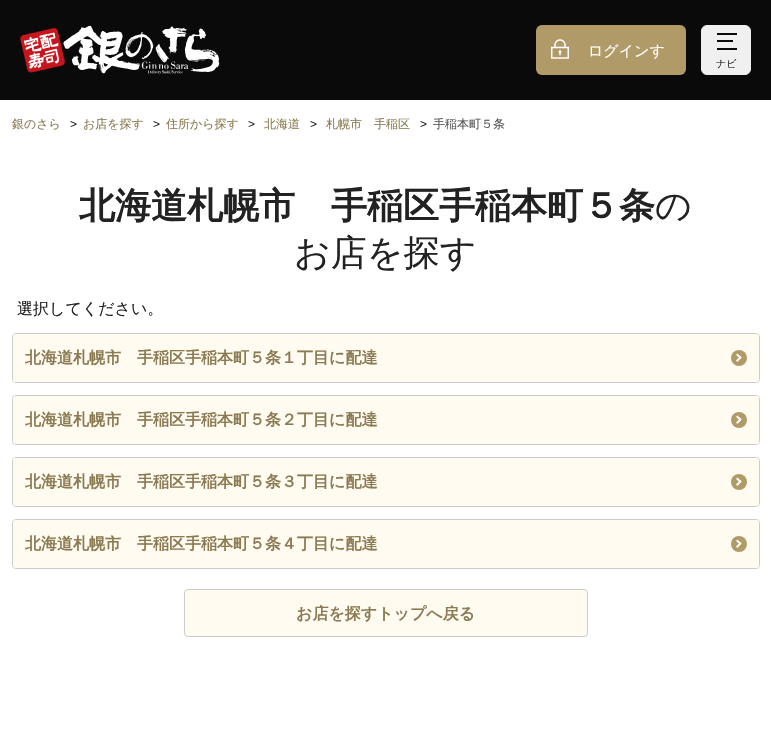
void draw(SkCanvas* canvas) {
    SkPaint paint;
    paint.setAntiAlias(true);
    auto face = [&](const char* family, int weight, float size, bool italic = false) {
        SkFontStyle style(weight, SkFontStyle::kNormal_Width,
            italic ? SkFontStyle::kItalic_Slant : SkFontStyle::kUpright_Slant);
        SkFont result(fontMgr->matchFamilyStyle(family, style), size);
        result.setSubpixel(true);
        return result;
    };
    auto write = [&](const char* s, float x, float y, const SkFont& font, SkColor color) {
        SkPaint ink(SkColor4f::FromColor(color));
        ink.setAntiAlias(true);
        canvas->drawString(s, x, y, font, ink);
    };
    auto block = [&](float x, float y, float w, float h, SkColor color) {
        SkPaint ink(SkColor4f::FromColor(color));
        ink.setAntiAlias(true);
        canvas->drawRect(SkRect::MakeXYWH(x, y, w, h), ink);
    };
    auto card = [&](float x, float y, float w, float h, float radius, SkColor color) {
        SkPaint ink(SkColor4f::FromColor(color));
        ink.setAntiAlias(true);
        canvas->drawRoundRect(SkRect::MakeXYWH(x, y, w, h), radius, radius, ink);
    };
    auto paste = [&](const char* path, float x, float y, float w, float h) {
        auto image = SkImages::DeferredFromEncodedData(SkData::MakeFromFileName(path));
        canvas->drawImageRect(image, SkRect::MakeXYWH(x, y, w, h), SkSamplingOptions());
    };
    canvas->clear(SK_ColorWHITE);
    block(0, 0, 771, 100, SkColorSetRGB(10, 10, 10));
    paste("pic1.png", 20, 25, 200, 50);
    card(536, 25, 150, 50, 6, SkColorSetRGB(176, 154, 104));
    paste("pic2.png", 551, 39, 18, 20);
    auto kFont1 = face("WenQuanYi Zen Hei", 500, 15);
    write("ログインす", 588, 56, kFont1, SK_ColorWHITE);
    paint.setColor(SkColorSetRGB(240, 240, 240));
    canvas->drawRoundRect(SkRect::MakeXYWH(701.5f, 25.5f, 49, 49), 5.5f, 5.5f, paint);
    paint.setStyle(SkPaint::kStroke_Style);
    paint.setStrokeWidth(1);
    canvas->drawRoundRect(SkRect::MakeXYWH(701.5f, 25.5f, 49, 49), 5.5f, 5.5f, paint);
    block(717, 33, 20, 2, SkColorSetRGB(10, 10, 10));
    block(717, 40, 16, 2, SkColorSetRGB(10, 10, 10));
    block(717, 48, 20, 2, SkColorSetRGB(10, 10, 10));
    auto kFont2 = face("WenQuanYi Zen Hei", 500, 10);
    write("ナビ", 716, 67, kFont2, SkColorSetRGB(34, 34, 34));
    auto kFont3 = face("WenQuanYi Zen Hei", 500, 12);
    write("銀のさら", 12, 128, kFont3, SkColorSetRGB(139, 122, 82));
    auto kFont4 = face("Liberation Sans", 400, 12);
    write(">", 70, 128, kFont4, SkColorSetRGB(34, 34, 34));
    write("お店を探す", 83, 128, kFont3, SkColorSetRGB(139, 122, 82));
    write(">", 153, 128, kFont4, SkColorSetRGB(34, 34, 34));
    write("住所から探す", 166, 128, kFont3, SkColorSetRGB(139, 122, 82));
    write(">", 248, 128, kFont4, SkColorSetRGB(34, 34, 34));
    write("北海道", 264, 128, kFont3, SkColorSetRGB(139, 122, 82));
    write(">", 310, 128, kFont4, SkColorSetRGB(34, 34, 34));
    write("札幌市　手稲区", 326, 128, kFont3, SkColorSetRGB(139, 122, 82));
    write(">", 420, 128, kFont4, SkColorSetRGB(34, 34, 34));
    write("手稲本町５条", 433, 128, kFont3, SkColorSetRGB(85, 85, 85));
    auto kFont5 = face("WenQuanYi Zen Hei", 700, 36);
    write("北海道札幌市　手稲区手稲本町５条", 79, 218, kFont5, SkColorSetRGB(34, 34, 34));
    auto kFont6 = face("WenQuanYi Zen Hei", 500, 36);
    write("の", 655, 218, kFont6, SkColorSetRGB(34, 34, 34));
    write("お店を探す", 294, 265, kFont6, SkColorSetRGB(34, 34, 34));
    auto kFont7 = face("WenQuanYi Zen Hei", 500, 16);
    write("選択してください。", 17, 314, kFont7, SkColorSetRGB(34, 34, 34));
    paint.setColor(SkColorSetRGB(204, 204, 204));
    canvas->drawRoundRect(SkRect::MakeXYWH(12.5f, 333.5f, 747, 49), 3.5f, 3.5f, paint);
    card(13, 334, 746, 48, 3, SkColorSetRGB(255, 251, 241));
    auto kFont8 = face("WenQuanYi Zen Hei", 700, 16);
    write("北海道札幌市　手稲区手稲本町５条１丁目に配達", 25, 363, kFont8, SkColorSetRGB(139, 122, 82));
    paint.setStyle(SkPaint::kFill_Style);
    paint.setColor(SkColorSetRGB(176, 154, 104));
    canvas->drawCircle(739, 358, 8, paint);
    paint.setColor(SK_ColorWHITE);
    canvas->drawPath(SkPathBuilder().moveTo(737.5f, 353.5f).lineTo(741.5f, 357.5f).lineTo(740.5f, 359).lineTo(736, 355).close().detach(), paint);
    canvas->drawPath(SkPathBuilder().moveTo(740.5f, 356).lineTo(741.5f, 357.5f).lineTo(737.5f, 362).lineTo(736, 360.5f).close().detach(), paint);
    paint.setStyle(SkPaint::kStroke_Style);
    paint.setColor(SkColorSetRGB(204, 204, 204));
    canvas->drawRoundRect(SkRect::MakeXYWH(12.5f, 395.5f, 747, 49), 3.5f, 3.5f, paint);
    card(13, 396, 746, 48, 3, SkColorSetRGB(255, 251, 241));
    write("北海道札幌市　手稲区手稲本町５条２丁目に配達", 25, 425, kFont8, SkColorSetRGB(139, 122, 82));
    paint.setStyle(SkPaint::kFill_Style);
    paint.setColor(SkColorSetRGB(176, 154, 104));
    canvas->drawCircle(739, 420, 8, paint);
    paint.setColor(SK_ColorWHITE);
    canvas->drawPath(SkPathBuilder().moveTo(737.5f, 415.5f).lineTo(741.5f, 419.5f).lineTo(740.5f, 421).lineTo(736, 417).close().detach(), paint);
    canvas->drawPath(SkPathBuilder().moveTo(740.5f, 418).lineTo(741.5f, 419.5f).lineTo(737.5f, 424).lineTo(736, 422.5f).close().detach(), paint);
    paint.setStyle(SkPaint::kStroke_Style);
    paint.setColor(SkColorSetRGB(204, 204, 204));
    canvas->drawRoundRect(SkRect::MakeXYWH(12.5f, 457.5f, 747, 49), 3.5f, 3.5f, paint);
    card(13, 458, 746, 48, 3, SkColorSetRGB(255, 251, 241));
    write("北海道札幌市　手稲区手稲本町５条３丁目に配達", 25, 487, kFont8, SkColorSetRGB(139, 122, 82));
    paint.setStyle(SkPaint::kFill_Style);
    paint.setColor(SkColorSetRGB(176, 154, 104));
    canvas->drawCircle(739, 482, 8, paint);
    paint.setColor(SK_ColorWHITE);
    canvas->drawPath(SkPathBuilder().moveTo(737.5f, 477.5f).lineTo(741.5f, 481.5f).lineTo(740.5f, 483).lineTo(736, 479).close().detach(), paint);
    canvas->drawPath(SkPathBuilder().moveTo(740.5f, 480).lineTo(741.5f, 481.5f).lineTo(737.5f, 486).lineTo(736, 484.5f).close().detach(), paint);
    paint.setStyle(SkPaint::kStroke_Style);
    paint.setColor(SkColorSetRGB(204, 204, 204));
    canvas->drawRoundRect(SkRect::MakeXYWH(12.5f, 519.5f, 747, 49), 3.5f, 3.5f, paint);
    card(13, 520, 746, 48, 3, SkColorSetRGB(255, 251, 241));
    write("北海道札幌市　手稲区手稲本町５条４丁目に配達", 25, 549, kFont8, SkColorSetRGB(139, 122, 82));
    paint.setStyle(SkPaint::kFill_Style);
    paint.setColor(SkColorSetRGB(176, 154, 104));
    canvas->drawCircle(739, 544, 8, paint);
    paint.setColor(SK_ColorWHITE);
    canvas->drawPath(SkPathBuilder().moveTo(737.5f, 539.5f).lineTo(741.5f, 543.5f).lineTo(740.5f, 545).lineTo(736, 541).close().detach(), paint);
    canvas->drawPath(SkPathBuilder().moveTo(740.5f, 542).lineTo(741.5f, 543.5f).lineTo(737.5f, 548).lineTo(736, 546.5f).close().detach(), paint);
    paint.setColor(SkColorSetRGB(255, 251, 241));
    canvas->drawRoundRect(SkRect::MakeXYWH(184.5f, 589.5f, 403, 47), 3.5f, 3.5f, paint);
    paint.setStyle(SkPaint::kStroke_Style);
    paint.setColor(SkColorSetRGB(204, 204, 204));
    canvas->drawRoundRect(SkRect::MakeXYWH(184.5f, 589.5f, 403, 47), 3.5f, 3.5f, paint);
    write("お店を探すトップへ戻る", 296, 619, kFont8, SkColorSetRGB(139, 122, 82));
}
